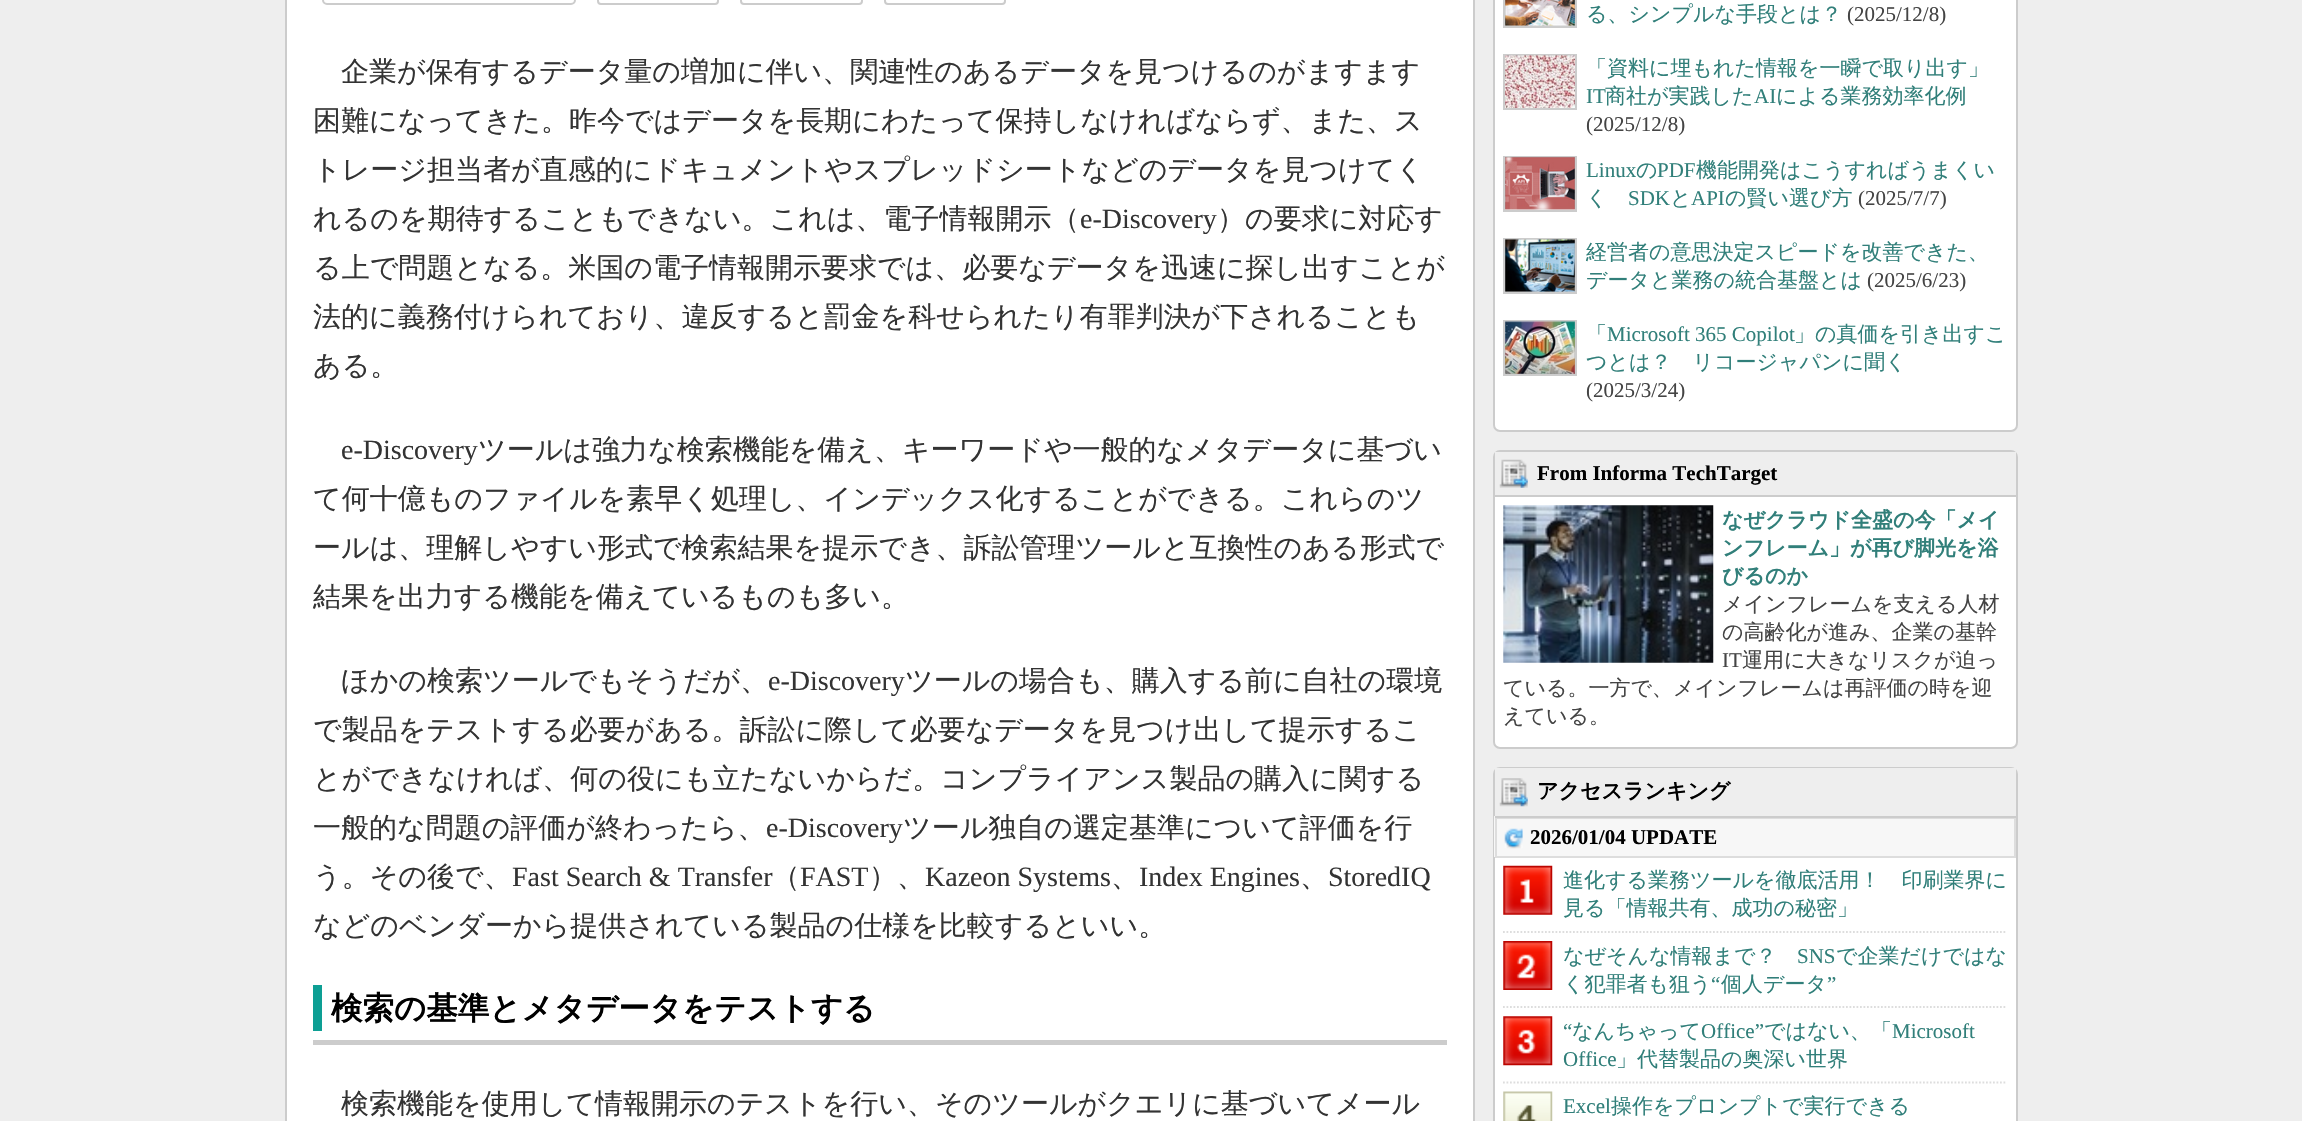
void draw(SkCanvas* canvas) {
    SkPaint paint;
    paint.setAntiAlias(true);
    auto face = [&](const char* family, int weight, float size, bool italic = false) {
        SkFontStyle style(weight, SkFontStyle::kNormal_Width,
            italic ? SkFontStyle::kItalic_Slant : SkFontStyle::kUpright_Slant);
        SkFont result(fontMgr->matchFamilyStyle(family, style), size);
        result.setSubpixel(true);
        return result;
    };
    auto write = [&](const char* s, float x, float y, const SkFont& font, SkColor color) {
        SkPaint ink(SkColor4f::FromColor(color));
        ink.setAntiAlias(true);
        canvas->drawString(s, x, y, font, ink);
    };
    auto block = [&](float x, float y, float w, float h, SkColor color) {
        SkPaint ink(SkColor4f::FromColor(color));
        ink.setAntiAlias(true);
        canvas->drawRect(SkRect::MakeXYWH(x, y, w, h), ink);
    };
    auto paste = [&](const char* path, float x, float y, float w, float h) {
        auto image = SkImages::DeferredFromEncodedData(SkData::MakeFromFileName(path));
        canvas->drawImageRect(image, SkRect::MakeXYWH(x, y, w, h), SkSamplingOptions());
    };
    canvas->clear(SkColorSetRGB(238, 238, 238));
    paint.setColor(SK_ColorWHITE);
    canvas->drawRect(SkRect::MakeXYWH(286, -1, 1188, 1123), paint);
    paint.setStyle(SkPaint::kStroke_Style);
    paint.setStrokeWidth(2);
    paint.setColor(SkColorSetRGB(204, 204, 204));
    canvas->drawRect(SkRect::MakeXYWH(286, -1, 1188, 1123), paint);
    canvas->drawRoundRect(SkRect::MakeXYWH(323, -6, 252, 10), 4, 4, paint);
    canvas->drawRoundRect(SkRect::MakeXYWH(598, -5, 120, 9), 3, 3, paint);
    canvas->drawRoundRect(SkRect::MakeXYWH(741, -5, 121, 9), 3, 3, paint);
    canvas->drawRoundRect(SkRect::MakeXYWH(885, -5, 120, 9), 3, 3, paint);
    auto kFont1 = face("WenQuanYi Zen Hei", 500, 28);
    write("企業が保有するデータ量の増加に伴い、関連性のあるデータを見つけるのがますます", 341, 81, kFont1, SkColorSetRGB(51, 51, 51));
    write("困難になってきた。昨今ではデータを長期にわたって保持しなければならず、また、ス", 313, 130, kFont1, SkColorSetRGB(51, 51, 51));
    write("トレージ担当者が直感的にドキュメントやスプレッドシートなどのデータを見つけてく", 313, 179, kFont1, SkColorSetRGB(51, 51, 51));
    write("れるのを期待することもできない。これは、電子情報開示（", 313, 228, kFont1, SkColorSetRGB(51, 51, 51));
    auto kFont2 = face("Liberation Serif", 400, 28);
    write("e-Discovery", 1080, 228, kFont2, SkColorSetRGB(51, 51, 51));
    write("）の要求に対応す", 1217, 228, kFont1, SkColorSetRGB(51, 51, 51));
    write("る上で問題となる。米国の電子情報開示要求では、必要なデータを迅速に探し出すことが", 313, 277, kFont1, SkColorSetRGB(51, 51, 51));
    write("法的に義務付けられており、違反すると罰金を科せられたり有罪判決が下されることも", 313, 326, kFont1, SkColorSetRGB(51, 51, 51));
    write("ある。", 313, 375, kFont1, SkColorSetRGB(51, 51, 51));
    write("e-Discovery", 341, 459, kFont2, SkColorSetRGB(51, 51, 51));
    write("ツールは強力な検索機能を備え、キーワードや一般的なメタデータに基づい", 478, 459, kFont1, SkColorSetRGB(51, 51, 51));
    write("て何十億ものファイルを素早く処理し、インデックス化することができる。これらのツ", 313, 508, kFont1, SkColorSetRGB(51, 51, 51));
    write("ールは、理解しやすい形式で検索結果を提示でき、訴訟管理ツールと互換性のある形式で", 313, 557, kFont1, SkColorSetRGB(51, 51, 51));
    write("結果を出力する機能を備えているものも多い。", 313, 606, kFont1, SkColorSetRGB(51, 51, 51));
    write("ほかの検索ツールでもそうだが、", 341, 690, kFont1, SkColorSetRGB(51, 51, 51));
    write("e-Discovery", 768, 690, kFont2, SkColorSetRGB(51, 51, 51));
    write("ツールの場合も、購入する前に自社の環境", 905, 690, kFont1, SkColorSetRGB(51, 51, 51));
    write("で製品をテストする必要がある。訴訟に際して必要なデータを見つけ出して提示するこ", 313, 739, kFont1, SkColorSetRGB(51, 51, 51));
    write("とができなければ、何の役にも立たないからだ。コンプライアンス製品の購入に関する", 313, 788, kFont1, SkColorSetRGB(51, 51, 51));
    write("一般的な問題の評価が終わったら、", 313, 837, kFont1, SkColorSetRGB(51, 51, 51));
    write("e-Discovery", 766, 837, kFont2, SkColorSetRGB(51, 51, 51));
    write("ツール独自の選定基準について評価を行", 903, 837, kFont1, SkColorSetRGB(51, 51, 51));
    write("う。その後で、", 313, 886, kFont1, SkColorSetRGB(51, 51, 51));
    write("Fast Search & Transfer", 512, 886, kFont2, SkColorSetRGB(51, 51, 51));
    write("（", 772, 886, kFont1, SkColorSetRGB(51, 51, 51));
    write("FAST", 800, 886, kFont2, SkColorSetRGB(51, 51, 51));
    write("）、", 869, 886, kFont1, SkColorSetRGB(51, 51, 51));
    write("Kazeon Systems", 925, 886, kFont2, SkColorSetRGB(51, 51, 51));
    write("、", 1111, 886, kFont1, SkColorSetRGB(51, 51, 51));
    write("Index Engines", 1139, 886, kFont2, SkColorSetRGB(51, 51, 51));
    write("、", 1300, 886, kFont1, SkColorSetRGB(51, 51, 51));
    write("StoredIQ", 1328, 886, kFont2, SkColorSetRGB(51, 51, 51));
    write("などのベンダーから提供されている製品の仕様を比較するといい。", 313, 935, kFont1, SkColorSetRGB(51, 51, 51));
    block(313, 1040, 1134, 5, SkColorSetRGB(204, 204, 204));
    block(313, 985, 9, 46, SkColorSetRGB(13, 159, 148));
    auto kFont3 = face("WenQuanYi Zen Hei", 700, 31.5f);
    write("検索の基準とメタデータをテストする", 331, 1019, kFont3, SK_ColorBLACK);
    write("検索機能を使用して情報開示のテストを行い、そのツールがクエリに基づいてメール", 341, 1113, kFont1, SkColorSetRGB(51, 51, 51));
    paint.setStyle(SkPaint::kFill_Style);
    paint.setColor(SK_ColorWHITE);
    canvas->drawRoundRect(SkRect::MakeXYWH(1494, -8, 523, 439), 6, 6, paint);
    paint.setStyle(SkPaint::kStroke_Style);
    paint.setColor(SkColorSetRGB(204, 204, 204));
    canvas->drawRoundRect(SkRect::MakeXYWH(1494, -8, 523, 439), 6, 6, paint);
    canvas->drawRect(SkRect::MakeXYWH(1504, -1, 72, 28), paint);
    paste("pic1.png", 1505, 0, 70, 26);
    auto kFont4 = face("WenQuanYi Zen Hei", 500, 21);
    write("る、シンプルな手段とは？", 1586, 21, kFont4, SkColorSetRGB(49, 127, 122));
    auto kFont5 = face("Liberation Serif", 400, 21);
    write("(2025/12/8)", 1847, 21, kFont5, SkColorSetRGB(68, 68, 68));
    canvas->drawRect(SkRect::MakeXYWH(1504, 55, 72, 54), paint);
    paste("pic2.png", 1505, 55, 70, 53);
    write("「資料に埋もれた情報を一瞬で取り出す」", 1586, 75, kFont4, SkColorSetRGB(49, 127, 122));
    write("IT", 1586, 103, kFont5, SkColorSetRGB(49, 127, 122));
    write("商社が実践した", 1605, 103, kFont4, SkColorSetRGB(49, 127, 122));
    write("AI", 1754, 103, kFont5, SkColorSetRGB(49, 127, 122));
    write("による業務効率化例", 1776, 103, kFont4, SkColorSetRGB(49, 127, 122));
    write("(2025/12/8)", 1586, 131, kFont5, SkColorSetRGB(68, 68, 68));
    canvas->drawRect(SkRect::MakeXYWH(1504, 157, 72, 54), paint);
    paste("pic3.png", 1505, 157, 70, 53);
    write("Linux", 1586, 177, kFont5, SkColorSetRGB(49, 127, 122));
    write("の", 1636, 177, kFont4, SkColorSetRGB(49, 127, 122));
    write("PDF", 1657, 177, kFont5, SkColorSetRGB(49, 127, 122));
    write("機能開発はこうすればうまくい", 1696, 177, kFont4, SkColorSetRGB(49, 127, 122));
    write("く", 1586, 205, kFont4, SkColorSetRGB(49, 127, 122));
    write("SDK", 1628, 205, kFont5, SkColorSetRGB(49, 127, 122));
    write("と", 1670, 205, kFont4, SkColorSetRGB(49, 127, 122));
    write("API", 1691, 205, kFont5, SkColorSetRGB(49, 127, 122));
    write("の賢い選び方", 1725, 205, kFont4, SkColorSetRGB(49, 127, 122));
    write("(2025/7/7)", 1858, 205, kFont5, SkColorSetRGB(68, 68, 68));
    canvas->drawRect(SkRect::MakeXYWH(1504, 239, 72, 54), paint);
    paste("pic4.png", 1505, 239, 70, 53);
    write("経営者の意思決定スピードを改善できた、", 1586, 259, kFont4, SkColorSetRGB(49, 127, 122));
    write("データと業務の統合基盤とは", 1586, 287, kFont4, SkColorSetRGB(49, 127, 122));
    write("(2025/6/23)", 1867, 287, kFont5, SkColorSetRGB(68, 68, 68));
    canvas->drawRect(SkRect::MakeXYWH(1504, 321, 72, 54), paint);
    paste("pic5.png", 1505, 321, 70, 53);
    write("「", 1586, 341, kFont4, SkColorSetRGB(49, 127, 122));
    write("Microsoft 365 Copilot", 1607, 341, kFont5, SkColorSetRGB(49, 127, 122));
    write("」の真価を引き出すこ", 1794, 341, kFont4, SkColorSetRGB(49, 127, 122));
    write("つとは？　リコージャパンに聞く", 1586, 369, kFont4, SkColorSetRGB(49, 127, 122));
    write("(2025/3/24)", 1586, 397, kFont5, SkColorSetRGB(68, 68, 68));
    paint.setStyle(SkPaint::kFill_Style);
    paint.setColor(SK_ColorWHITE);
    canvas->drawRoundRect(SkRect::MakeXYWH(1494, 451, 523, 297), 6, 6, paint);
    paint.setStyle(SkPaint::kStroke_Style);
    paint.setColor(SkColorSetRGB(204, 204, 204));
    canvas->drawRoundRect(SkRect::MakeXYWH(1494, 451, 523, 297), 6, 6, paint);
    block(1495, 452, 521, 43, SkColorSetRGB(238, 238, 238));
    paste("pic6.png", 1499, 459, 29, 29);
    block(1495, 495, 521, 2, SkColorSetRGB(204, 204, 204));
    auto kFont6 = face("Liberation Serif", 700, 21);
    write("From Informa TechTarget", 1537, 480, kFont6, SK_ColorBLACK);
    paste("pic7.png", 1503, 505, 211, 158);
    auto kFont7 = face("WenQuanYi Zen Hei", 700, 21);
    write("なぜクラウド全盛の今「メイ", 1722, 527, kFont7, SkColorSetRGB(49, 127, 122));
    write("ンフレーム」が再び脚光を浴", 1722, 555, kFont7, SkColorSetRGB(49, 127, 122));
    write("びるのか", 1722, 583, kFont7, SkColorSetRGB(49, 127, 122));
    write("メインフレームを支える人材", 1722, 611, kFont4, SkColorSetRGB(68, 68, 68));
    write("の高齢化が進み、企業の基幹", 1722, 639, kFont4, SkColorSetRGB(68, 68, 68));
    write("IT", 1722, 667, kFont5, SkColorSetRGB(68, 68, 68));
    write("運用に大きなリスクが迫っ", 1742, 667, kFont4, SkColorSetRGB(68, 68, 68));
    write("ている。一方で、メインフレームは再評価の時を迎", 1503, 695, kFont4, SkColorSetRGB(68, 68, 68));
    write("えている。", 1503, 723, kFont4, SkColorSetRGB(68, 68, 68));
    paint.setStyle(SkPaint::kFill_Style);
    paint.setColor(SK_ColorWHITE);
    canvas->drawRoundRect(SkRect::MakeXYWH(1494, 768, 523, 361), 6, 6, paint);
    paint.setStyle(SkPaint::kStroke_Style);
    paint.setColor(SkColorSetRGB(204, 204, 204));
    canvas->drawRoundRect(SkRect::MakeXYWH(1494, 768, 523, 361), 6, 6, paint);
    block(1495, 768, 521, 48, SkColorSetRGB(238, 238, 238));
    paste("pic8.png", 1499, 778, 29, 29);
    block(1494, 816, 520, 41, SkColorSetRGB(247, 247, 247));
    paint.setColor(SkColorSetRGB(221, 221, 221));
    canvas->drawRect(SkRect::MakeXYWH(1496, 818, 519, 39), paint);
    block(1495, 816, 521, 2, SkColorSetRGB(204, 204, 204));
    write("アクセスランキング", 1537, 798, kFont7, SK_ColorBLACK);
    paste("pic9.png", 1504, 828, 19, 21);
    write("2026/01/04 UPDATE", 1530, 844, kFont6, SK_ColorBLACK);
    paint.setStrokeWidth(1.8f);
    paint.setPathEffect(SkDashPathEffect::Make({{1.75f, 1.75f}}, 0));
    canvas->drawPath(SkPathBuilder().moveTo(1503, 932).lineTo(2007, 932).detach(), paint);
    paint.setPathEffect(nullptr);
    paste("pic10.png", 1503, 865, 50, 50);
    write("進化する業務ツールを徹底活用！　印刷業界に", 1563, 887, kFont4, SkColorSetRGB(49, 127, 122));
    write("見る「情報共有、成功の秘密」", 1563, 915, kFont4, SkColorSetRGB(49, 127, 122));
    paint.setPathEffect(SkDashPathEffect::Make({{1.75f, 1.75f}}, 0));
    canvas->drawPath(SkPathBuilder().moveTo(1503, 1007).lineTo(2007, 1007).detach(), paint);
    paint.setPathEffect(nullptr);
    paste("pic11.png", 1503, 941, 50, 49);
    write("なぜそんな情報まで？", 1563, 963, kFont4, SkColorSetRGB(49, 127, 122));
    write("SNS", 1797, 963, kFont5, SkColorSetRGB(49, 127, 122));
    write("で企業だけではな", 1836, 963, kFont4, SkColorSetRGB(49, 127, 122));
    write("く犯罪者も狙う", 1563, 991, kFont4, SkColorSetRGB(49, 127, 122));
    write("“", 1711, 991, kFont5, SkColorSetRGB(49, 127, 122));
    write("個人データ", 1721, 991, kFont4, SkColorSetRGB(49, 127, 122));
    write("”", 1827, 991, kFont5, SkColorSetRGB(49, 127, 122));
    paint.setPathEffect(SkDashPathEffect::Make({{1.75f, 1.75f}}, 0));
    canvas->drawPath(SkPathBuilder().moveTo(1503, 1082.5f).lineTo(2007, 1082.5f).detach(), paint);
    paint.setPathEffect(nullptr);
    paste("pic12.png", 1503, 1016, 50, 50);
    write("“", 1563, 1038, kFont5, SkColorSetRGB(49, 127, 122));
    write("なんちゃって", 1572, 1038, kFont4, SkColorSetRGB(49, 127, 122));
    write("Office”", 1701, 1038, kFont5, SkColorSetRGB(49, 127, 122));
    write("ではない、「", 1764, 1038, kFont4, SkColorSetRGB(49, 127, 122));
    write("Microsoft", 1892, 1038, kFont5, SkColorSetRGB(49, 127, 122));
    write("Office", 1563, 1066, kFont5, SkColorSetRGB(49, 127, 122));
    write("」代替製品の奥深い世界", 1616, 1066, kFont4, SkColorSetRGB(49, 127, 122));
    paste("pic13.png", 1503, 1091, 50, 30);
    write("Excel", 1563, 1113, kFont5, SkColorSetRGB(49, 127, 122));
    write("操作をプロンプトで実行できる", 1611, 1113, kFont4, SkColorSetRGB(49, 127, 122));
}
